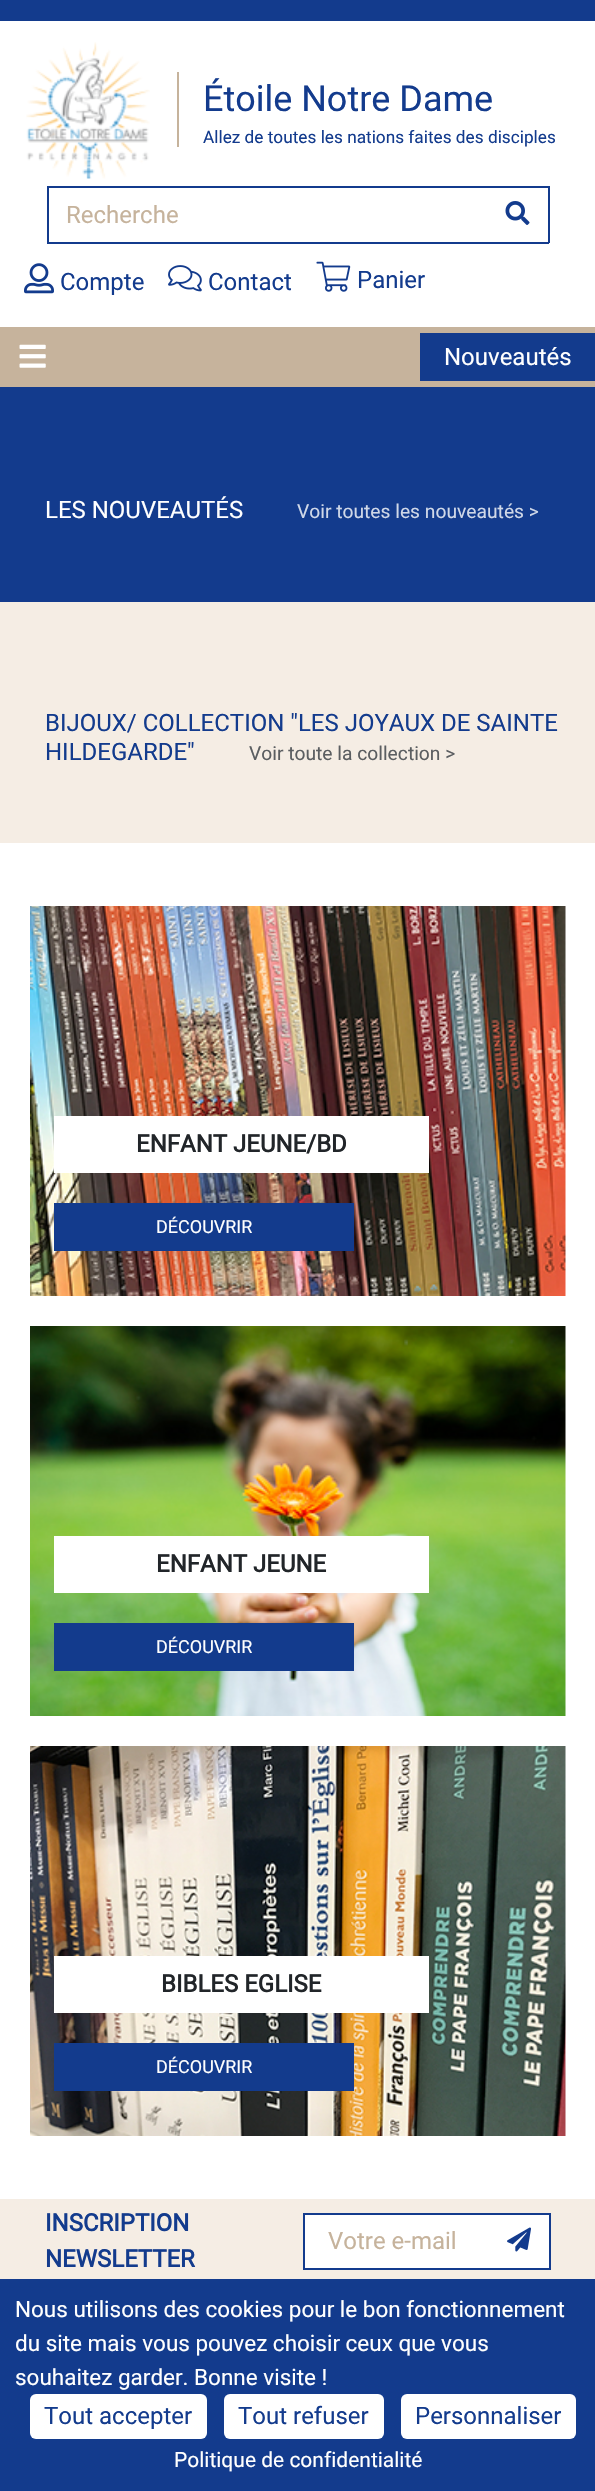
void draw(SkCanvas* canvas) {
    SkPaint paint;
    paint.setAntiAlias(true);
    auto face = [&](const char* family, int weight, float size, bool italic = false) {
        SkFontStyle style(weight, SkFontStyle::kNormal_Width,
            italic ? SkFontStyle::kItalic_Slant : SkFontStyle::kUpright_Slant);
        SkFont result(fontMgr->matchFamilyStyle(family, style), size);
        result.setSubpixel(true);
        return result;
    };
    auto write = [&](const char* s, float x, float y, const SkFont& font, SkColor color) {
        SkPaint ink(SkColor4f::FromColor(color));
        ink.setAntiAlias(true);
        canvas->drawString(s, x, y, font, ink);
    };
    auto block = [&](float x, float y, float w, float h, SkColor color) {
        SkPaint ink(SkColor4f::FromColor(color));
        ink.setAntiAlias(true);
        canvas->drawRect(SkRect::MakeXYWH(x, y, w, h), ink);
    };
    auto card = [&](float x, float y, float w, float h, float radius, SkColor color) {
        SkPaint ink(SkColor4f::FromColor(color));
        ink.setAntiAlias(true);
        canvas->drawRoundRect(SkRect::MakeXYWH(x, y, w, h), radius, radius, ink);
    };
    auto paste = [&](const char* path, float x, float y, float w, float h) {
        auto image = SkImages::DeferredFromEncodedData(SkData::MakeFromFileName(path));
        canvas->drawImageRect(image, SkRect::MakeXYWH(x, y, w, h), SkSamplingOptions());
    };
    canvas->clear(SK_ColorWHITE);
    block(0, 0, 595, 21, SkColorSetRGB(19, 59, 141));
    paste("pic1.png", 26, 42, 124, 137);
    block(177, 72, 2, 75, SkColorSetRGB(198, 179, 156));
    auto kFont1 = face("Roboto", 400, 36);
    write("Étoile Notre Dame", 203, 111, kFont1, SkColorSetRGB(19, 59, 141));
    auto kFont2 = face("Roboto", 400, 17.25f);
    write("Allez de toutes les nations faites des disciples", 203, 143, kFont2, SkColorSetRGB(19, 59, 141));
    block(47, 186, 502, 2, SkColorSetRGB(19, 59, 141));
    block(47, 242, 442, 2, SkColorSetRGB(19, 59, 141));
    block(47, 186, 2, 57, SkColorSetRGB(19, 59, 141));
    auto kFont3 = face("Roboto", 400, 24);
    write("Recherche", 66, 223, kFont3, SkColorSetRGB(198, 179, 156));
    block(548, 186, 2, 57, SkColorSetRGB(19, 59, 141));
    block(488, 242, 61, 2, SkColorSetRGB(19, 59, 141));
    paste("pic2.png", 505, 201, 25, 24);
    paste("pic3.png", 24, 263, 30, 31);
    write("Compte", 60, 290, kFont3, SkColorSetRGB(19, 59, 141));
    paste("pic4.png", 168, 265, 34, 27);
    write("Contact", 208, 290, kFont3, SkColorSetRGB(19, 59, 141));
    paste("pic5.png", 316, 261, 35, 31);
    write("Panier", 357, 288, kFont3, SkColorSetRGB(19, 59, 141));
    block(0, 327, 595, 60, SkColorSetRGB(198, 179, 156));
    paste("pic6.png", 19, 344, 27, 24);
    block(420, 333, 175, 48, SkColorSetRGB(19, 59, 141));
    write("Nouveautés", 444, 365, kFont3, SK_ColorWHITE);
    block(0, 387, 595, 215, SkColorSetRGB(19, 59, 141));
    write("LES NOUVEAUTÉS", 45, 518, kFont3, SK_ColorWHITE);
    auto kFont4 = face("Roboto", 400, 19.25f);
    write("Voir toutes les nouveautés >", 297, 518, kFont4, SkColorSetRGB(208, 216, 232));
    block(0, 602, 595, 241, SkColorSetRGB(245, 237, 228));
    write("BIJOUX/ COLLECTION \"LES JOYAUX DE SAINTE", 45, 731, kFont3, SkColorSetRGB(19, 59, 141));
    write("HILDEGARDE\"", 45, 760, kFont3, SkColorSetRGB(19, 59, 141));
    write("Voir toute la collection >", 249, 760, kFont4, SkColorSetRGB(91, 94, 97));
    paste("pic7.png", 30, 906, 536, 390);
    block(54, 1116, 375, 57, SK_ColorWHITE);
    auto kFont5 = face("Roboto", 700, 24);
    write("ENFANT JEUNE/BD", 136, 1152, kFont5, SkColorSetRGB(33, 37, 41));
    block(54, 1203, 300, 48, SkColorSetRGB(19, 59, 141));
    auto kFont6 = face("Roboto", 400, 18);
    write("DÉCOUVRIR", 156, 1233, kFont6, SK_ColorWHITE);
    paste("pic8.png", 30, 1326, 536, 390);
    block(54, 1536, 375, 57, SK_ColorWHITE);
    write("ENFANT JEUNE", 156, 1572, kFont5, SkColorSetRGB(33, 37, 41));
    block(54, 1623, 300, 48, SkColorSetRGB(19, 59, 141));
    write("DÉCOUVRIR", 156, 1653, kFont6, SK_ColorWHITE);
    paste("pic9.png", 30, 1746, 536, 390);
    block(54, 1956, 375, 57, SK_ColorWHITE);
    write("BIBLES EGLISE", 161, 1992, kFont5, SkColorSetRGB(33, 37, 41));
    block(54, 2043, 300, 48, SkColorSetRGB(19, 59, 141));
    write("DÉCOUVRIR", 156, 2073, kFont6, SK_ColorWHITE);
    block(0, 2199, 595, 80, SkColorSetRGB(245, 237, 228));
    write("INSCRIPTION", 45, 2231, kFont5, SkColorSetRGB(19, 59, 141));
    write("NEWSLETTER", 45, 2267, kFont5, SkColorSetRGB(19, 59, 141));
    block(305, 2215, 244, 53, SK_ColorWHITE);
    block(303, 2213, 248, 2, SkColorSetRGB(19, 59, 141));
    block(303, 2268, 188, 2, SkColorSetRGB(19, 59, 141));
    block(303, 2213, 2, 57, SkColorSetRGB(19, 59, 141));
    write("Votre e-mail", 328, 2249, kFont3, SkColorSetRGB(198, 179, 156));
    block(549, 2213, 2, 57, SkColorSetRGB(19, 59, 141));
    block(489, 2268, 62, 2, SkColorSetRGB(19, 59, 141));
    paste("pic10.png", 507, 2227, 24, 25);
    block(0, 2279, 595, 212, SkColorSetRGB(19, 59, 141));
    auto kFont7 = face("Roboto", 400, 22.5f);
    write("Nous utilisons des cookies pour le bon fonctionnement", 15, 2317, kFont7, SK_ColorWHITE);
    write("du site mais vous pouvez choisir ceux que vous", 15, 2351, kFont7, SK_ColorWHITE);
    write("souhaitez garder. Bonne visite !", 15, 2385, kFont7, SK_ColorWHITE);
    card(30, 2394, 177, 45, 6, SK_ColorWHITE);
    write("Tout accepter", 44, 2424, kFont3, SkColorSetRGB(19, 59, 141));
    card(224, 2394, 160, 45, 6, SK_ColorWHITE);
    write("Tout refuser", 238, 2424, kFont3, SkColorSetRGB(19, 59, 141));
    card(401, 2394, 175, 45, 6, SK_ColorWHITE);
    write("Personnaliser", 415, 2424, kFont3, SkColorSetRGB(19, 59, 141));
    auto kFont8 = face("Roboto", 400, 21);
    write("Politique de confidentialité", 174, 2467, kFont8, SK_ColorWHITE);
}
